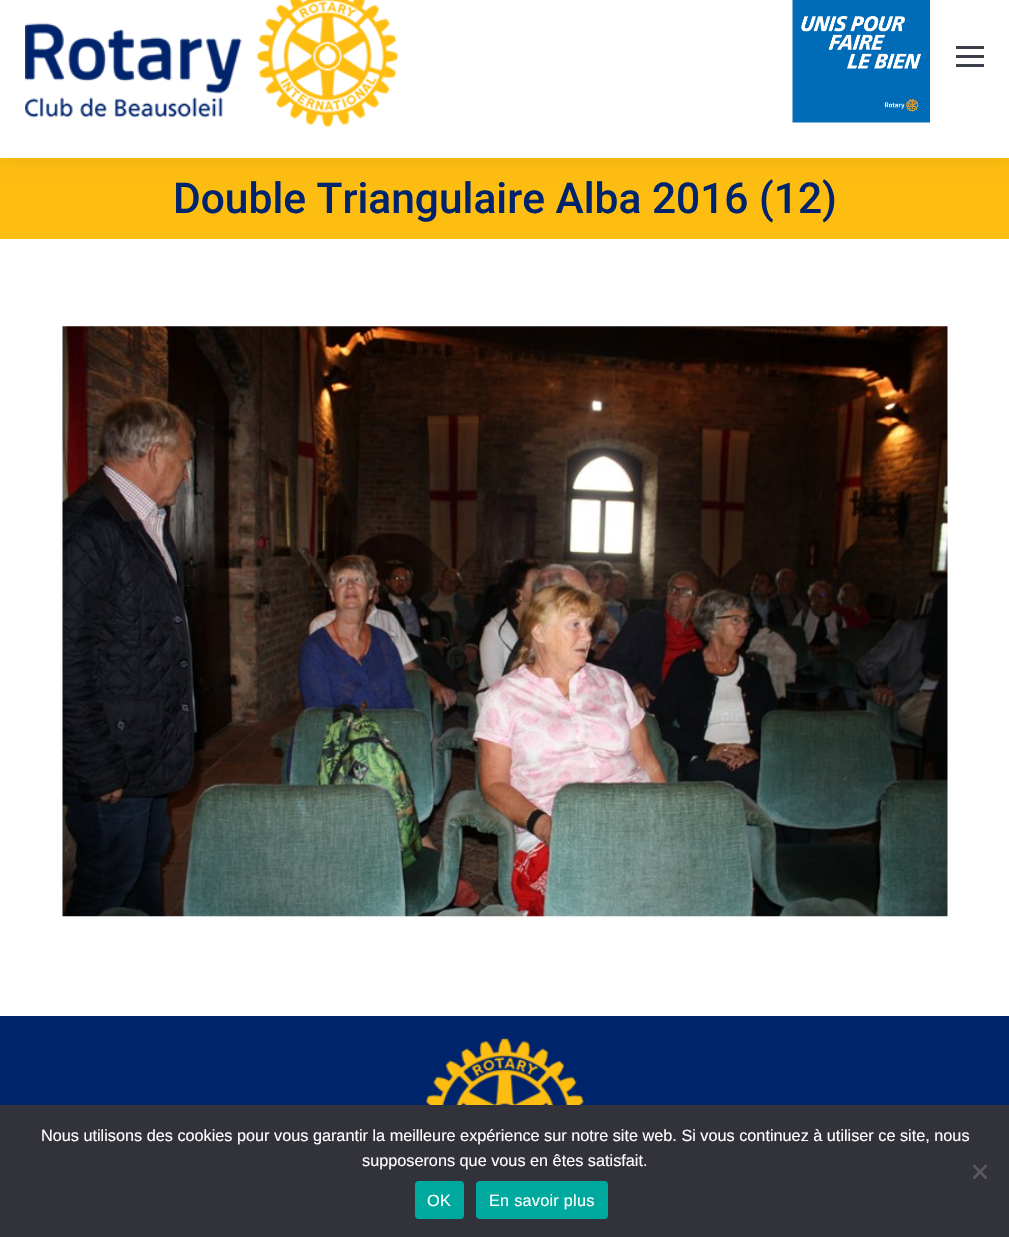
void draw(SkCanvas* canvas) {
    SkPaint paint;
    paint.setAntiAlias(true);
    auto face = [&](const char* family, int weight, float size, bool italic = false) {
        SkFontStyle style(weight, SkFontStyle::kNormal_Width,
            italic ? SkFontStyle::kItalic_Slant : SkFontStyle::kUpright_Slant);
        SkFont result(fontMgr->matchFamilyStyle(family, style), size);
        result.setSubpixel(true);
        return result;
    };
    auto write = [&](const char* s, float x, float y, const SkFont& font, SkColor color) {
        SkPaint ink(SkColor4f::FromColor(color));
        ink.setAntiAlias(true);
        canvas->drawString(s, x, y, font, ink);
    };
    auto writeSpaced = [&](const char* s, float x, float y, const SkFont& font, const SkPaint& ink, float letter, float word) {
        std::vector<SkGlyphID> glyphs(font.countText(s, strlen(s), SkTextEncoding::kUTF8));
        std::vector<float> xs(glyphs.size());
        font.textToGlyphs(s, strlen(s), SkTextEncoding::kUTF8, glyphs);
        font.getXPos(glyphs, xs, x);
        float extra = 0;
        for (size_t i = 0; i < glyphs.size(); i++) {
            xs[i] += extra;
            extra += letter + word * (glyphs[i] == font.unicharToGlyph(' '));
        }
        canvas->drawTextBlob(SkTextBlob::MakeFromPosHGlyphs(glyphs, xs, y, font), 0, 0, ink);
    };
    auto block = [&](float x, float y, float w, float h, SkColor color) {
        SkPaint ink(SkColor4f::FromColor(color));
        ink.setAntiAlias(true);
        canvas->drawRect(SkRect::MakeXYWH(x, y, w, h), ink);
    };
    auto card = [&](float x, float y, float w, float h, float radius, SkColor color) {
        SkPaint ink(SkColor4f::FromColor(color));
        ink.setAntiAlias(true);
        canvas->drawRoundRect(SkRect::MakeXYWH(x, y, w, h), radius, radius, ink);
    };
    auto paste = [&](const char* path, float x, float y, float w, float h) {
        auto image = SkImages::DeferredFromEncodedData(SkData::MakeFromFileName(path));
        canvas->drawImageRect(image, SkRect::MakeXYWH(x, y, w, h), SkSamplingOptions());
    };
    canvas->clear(SK_ColorWHITE);
    block(0, 158, 1009, 81, SkColorSetRGB(254, 189, 17));
    paint.setColor(SkColorSetARGB(18, 0, 0, 0));
    paint.setMaskFilter(SkMaskFilter::MakeBlur(kNormal_SkBlurStyle, 9.5f));
    canvas->drawRect(SkRect::MakeXYWH(-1, -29, 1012, 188), paint);
    paint.setMaskFilter(nullptr);
    block(0, 0, 1009, 158, SK_ColorWHITE);
    paste("pic1.png", 25, 0, 373, 127);
    paste("pic2.png", 792, 0, 138, 123);
    block(956, 46, 28, 3, SkColorSetRGB(59, 63, 74));
    block(956, 55, 28, 3, SkColorSetRGB(59, 63, 74));
    block(956, 64, 28, 3, SkColorSetRGB(59, 63, 74));
    auto kFont1 = face("Roboto", 500, 42.5f);
    write("Double Triangulaire Alba 2016 (12)", 173, 213, kFont1, SkColorSetRGB(0, 36, 108));
    paste("pic3.png", 62, 326, 886, 591);
    block(0, 1016, 1009, 89, SkColorSetRGB(0, 36, 108));
    paste("pic4.png", 426, 1038, 158, 67);
    block(0, 1105, 1009, 132, SkColorSetRGB(50, 50, 58));
    auto kFont2 = face("Liberation Sans", 400, 16.25f);
    write("Nous utilisons des cookies pour vous garantir la meilleure expérience sur notre site web. Si vous continuez à utiliser ce site, nous", 41, 1141, kFont2, SK_ColorWHITE);
    write("supposerons que vous en êtes satisfait.", 362, 1166, kFont2, SK_ColorWHITE);
    paint.setColor(SkColorSetRGB(89, 89, 93));
    canvas->drawPath(SkPathBuilder().moveTo(985.5f, 1164.5f).lineTo(987.5f, 1166).lineTo(974.5f, 1179.5f).lineTo(972.5f, 1177.5f).close().detach(), paint);
    canvas->drawPath(SkPathBuilder().moveTo(972.5f, 1166).lineTo(974.5f, 1164.5f).lineTo(987.5f, 1177.5f).lineTo(985.5f, 1179.5f).close().detach(), paint);
    card(415, 1181, 49, 38, 4, SkColorSetRGB(0, 169, 157));
    paint.setColor(SK_ColorWHITE);
    writeSpaced("OK", 427, 1206, kFont2, paint, 0.25f, 0);
    card(476, 1181, 132, 38, 4, SkColorSetRGB(0, 169, 157));
    writeSpaced("En savoir plus", 489, 1206, kFont2, paint, 0.25f, 0);
}
